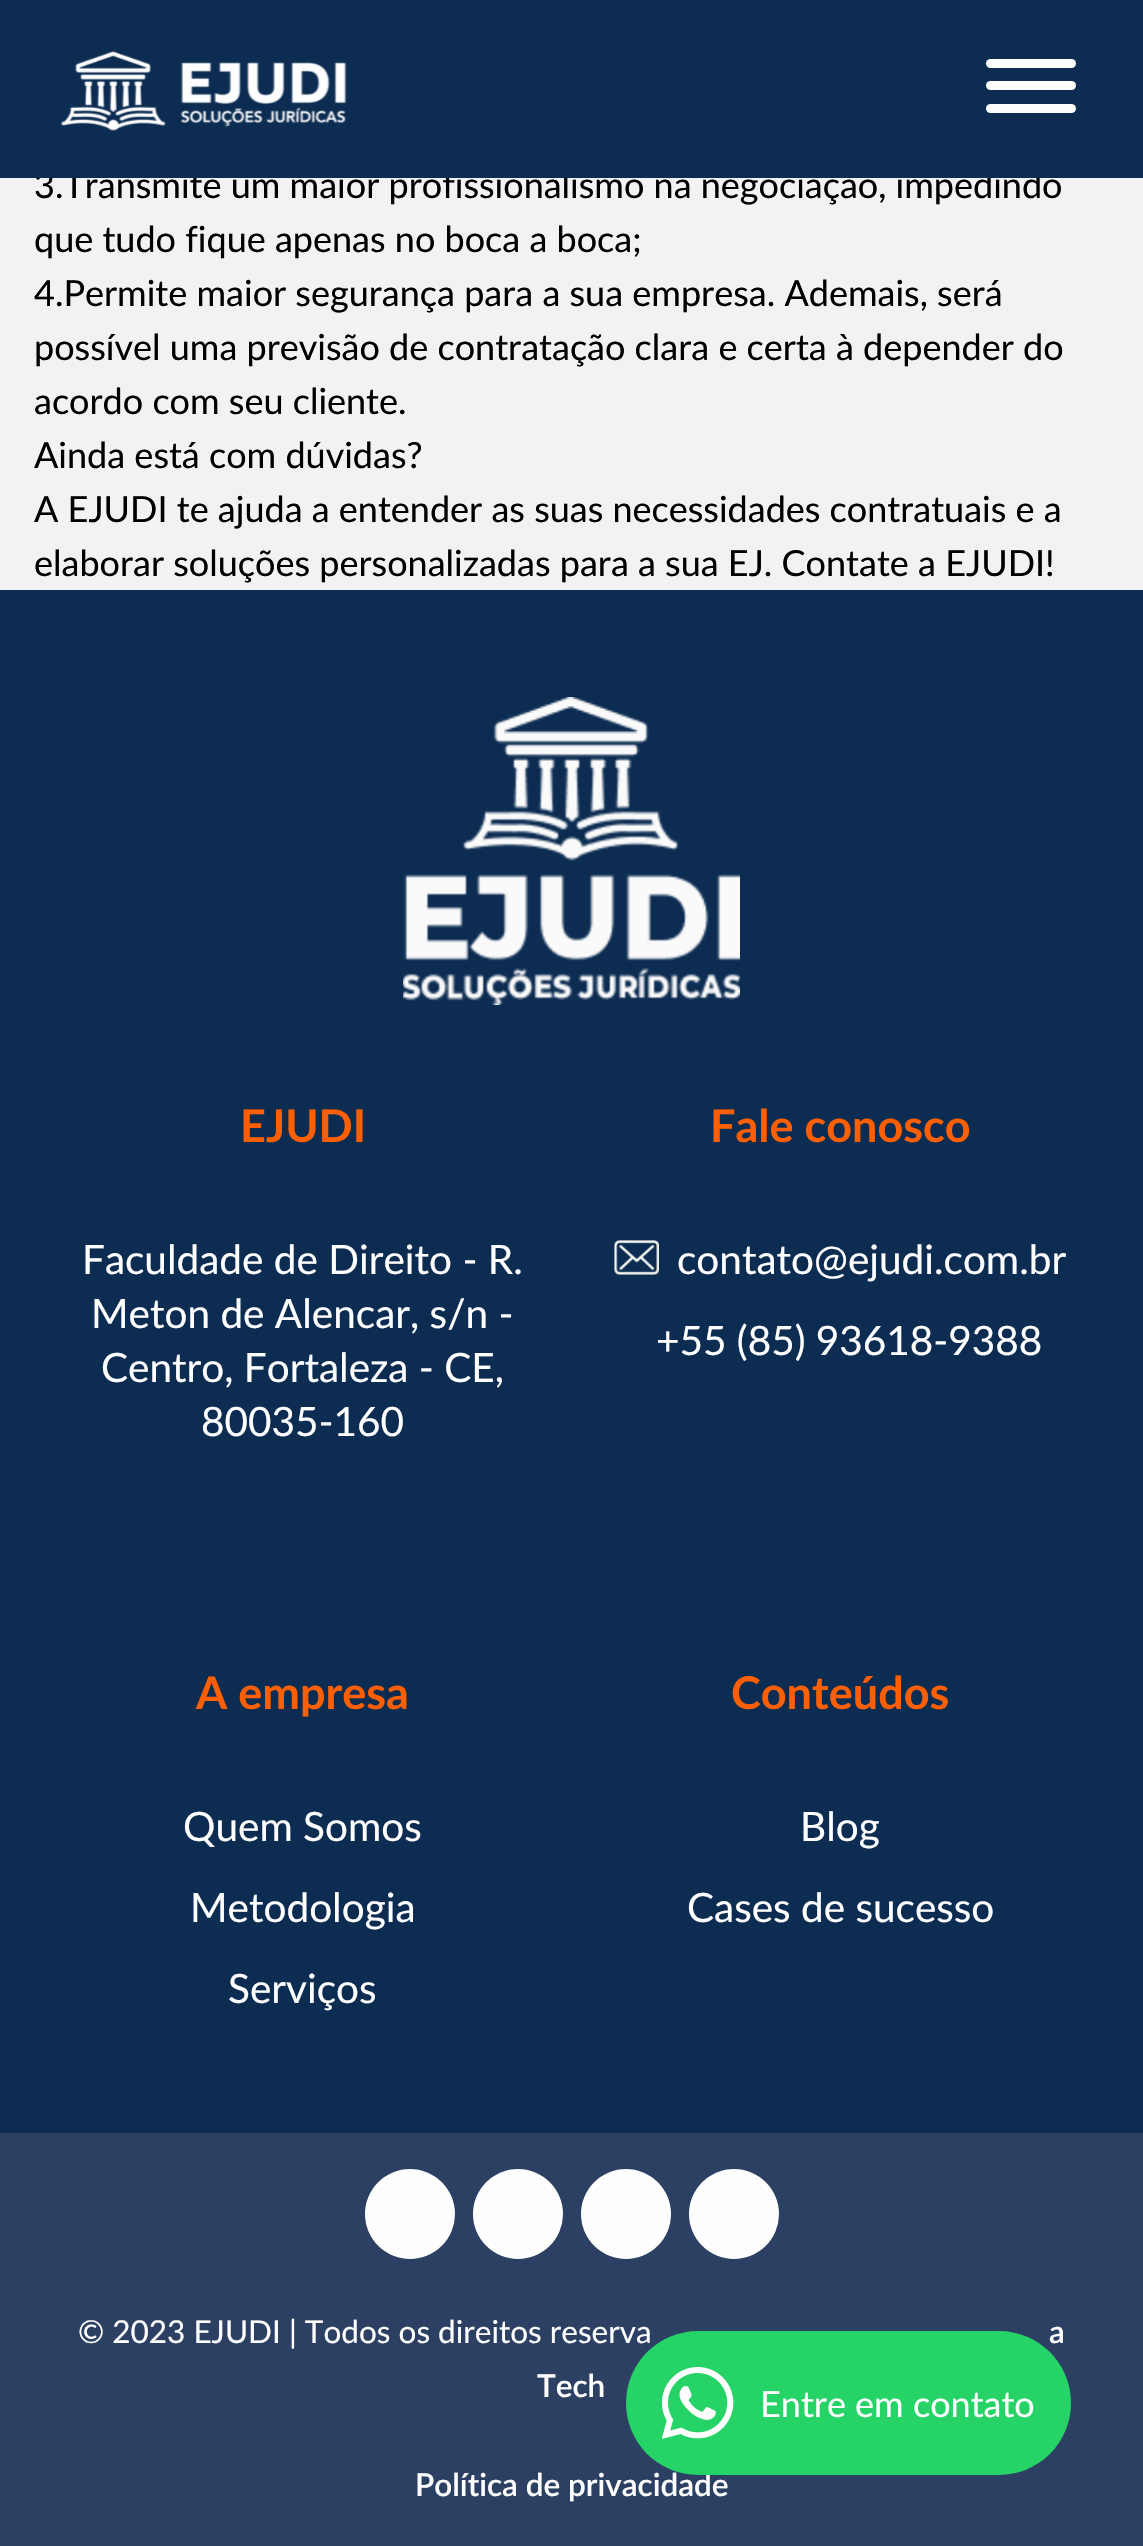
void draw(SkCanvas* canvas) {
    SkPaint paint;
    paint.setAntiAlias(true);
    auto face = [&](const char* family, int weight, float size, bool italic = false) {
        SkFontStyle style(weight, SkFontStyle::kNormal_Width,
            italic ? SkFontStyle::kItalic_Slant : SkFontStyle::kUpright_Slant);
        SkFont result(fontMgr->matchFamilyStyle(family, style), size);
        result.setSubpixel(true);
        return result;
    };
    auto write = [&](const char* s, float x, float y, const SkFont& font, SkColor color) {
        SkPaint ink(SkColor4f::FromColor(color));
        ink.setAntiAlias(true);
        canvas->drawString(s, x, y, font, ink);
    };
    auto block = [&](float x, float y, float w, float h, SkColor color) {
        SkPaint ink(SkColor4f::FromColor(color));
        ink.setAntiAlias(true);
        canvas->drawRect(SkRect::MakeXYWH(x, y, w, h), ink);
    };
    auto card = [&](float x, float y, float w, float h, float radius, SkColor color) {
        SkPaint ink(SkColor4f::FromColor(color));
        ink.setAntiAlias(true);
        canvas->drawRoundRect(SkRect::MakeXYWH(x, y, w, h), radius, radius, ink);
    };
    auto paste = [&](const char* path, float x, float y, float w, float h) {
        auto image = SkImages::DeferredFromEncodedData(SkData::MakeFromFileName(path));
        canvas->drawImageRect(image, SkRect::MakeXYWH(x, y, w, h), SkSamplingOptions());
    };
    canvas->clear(SkColorSetRGB(242, 242, 242));
    auto kFont1 = face("Lato", 400, 36);
    write("3.Transmite um maior profissionalismo na negociação, impedindo", 34, 198, kFont1, SK_ColorBLACK);
    block(0, 0, 1143, 178, SkColorSetRGB(12, 44, 82));
    paste("pic1.png", 60, 51, 287, 80);
    card(986, 104, 90, 9, 4.5f, SkColorSetRGB(254, 254, 254));
    card(986, 59, 90, 9, 4.5f, SkColorSetRGB(254, 254, 254));
    card(986, 81, 90, 9, 4.5f, SkColorSetRGB(254, 254, 254));
    write("que tudo fique apenas no boca a boca;", 34, 252, kFont1, SK_ColorBLACK);
    write("4.Permite maior segurança para a sua empresa. Ademais, será", 34, 306, kFont1, SK_ColorBLACK);
    write("possível uma previsão de contratação clara e certa à depender do", 34, 360, kFont1, SK_ColorBLACK);
    write("acordo com seu cliente.", 34, 414, kFont1, SK_ColorBLACK);
    write("Ainda está com dúvidas?", 34, 468, kFont1, SK_ColorBLACK);
    write("A EJUDI te ajuda a entender as suas necessidades contratuais e a", 34, 522, kFont1, SK_ColorBLACK);
    write("elaborar soluções personalizadas para a sua EJ. Contate a EJUDI!", 34, 576, kFont1, SK_ColorBLACK);
    block(0, 590, 1143, 1543, SkColorSetRGB(12, 44, 82));
    paste("pic2.png", 403, 697, 337, 308);
    auto kFont2 = face("Lato", 700, 45);
    write("EJUDI", 240, 1142, kFont2, SkColorSetRGB(254, 95, 2));
    auto kFont3 = face("Lato", 400, 40.5f);
    write("Faculdade de Direito - R.", 82, 1274, kFont3, SkColorSetRGB(254, 254, 254));
    write("Meton de Alencar, s/n -", 91, 1328, kFont3, SkColorSetRGB(254, 254, 254));
    write("Centro, Fortaleza - CE,", 101, 1382, kFont3, SkColorSetRGB(254, 254, 254));
    write("80035-160", 201, 1436, kFont3, SkColorSetRGB(254, 254, 254));
    write("Fale conosco", 710, 1142, kFont2, SkColorSetRGB(254, 95, 2));
    paste("pic3.png", 614, 1240, 45, 35);
    write("contato@ejudi.com.br", 677, 1274, kFont3, SkColorSetRGB(254, 254, 254));
    write("+55 (85) 93618-9388", 656, 1355, kFont3, SkColorSetRGB(254, 254, 254));
    write("A empresa", 196, 1709, kFont2, SkColorSetRGB(254, 95, 2));
    write("Quem Somos", 183, 1841, kFont3, SkColorSetRGB(254, 254, 254));
    write("Metodologia", 190, 1922, kFont3, SkColorSetRGB(254, 254, 254));
    write("Serviços", 228, 2003, kFont3, SkColorSetRGB(254, 254, 254));
    write("Conteúdos", 731, 1709, kFont2, SkColorSetRGB(254, 95, 2));
    write("Blog", 800, 1841, kFont3, SkColorSetRGB(254, 254, 254));
    write("Cases de sucesso", 687, 1922, kFont3, SkColorSetRGB(254, 254, 254));
    block(0, 2133, 1143, 413, SkColorSetRGB(44, 64, 99));
    paint.setColor(SkColorSetRGB(254, 254, 254));
    canvas->drawCircle(410, 2214, 45, paint);
    canvas->drawCircle(518, 2214, 45, paint);
    canvas->drawCircle(626, 2214, 45, paint);
    canvas->drawCircle(734, 2214, 45, paint);
    auto kFont4 = face("Lato", 400, 31.5f);
    write("© 2023 EJUDI | Todos os direitos reserva", 78, 2343, kFont4, SkColorSetRGB(254, 254, 254));
    auto kFont5 = face("Lato", 600, 31.5f);
    write("a", 1049, 2343, kFont5, SkColorSetRGB(254, 254, 254));
    write("Tech", 537, 2397, kFont5, SkColorSetRGB(254, 254, 254));
    write("Política de privacidade", 415, 2496, kFont5, SkColorSetRGB(254, 254, 254));
    card(626, 2331, 445, 144, 72, SkColorSetRGB(37, 211, 102));
    paste("pic4.png", 662, 2367, 72, 72);
    write("Entre em contato", 760, 2417, kFont1, SkColorSetRGB(254, 254, 254));
}
